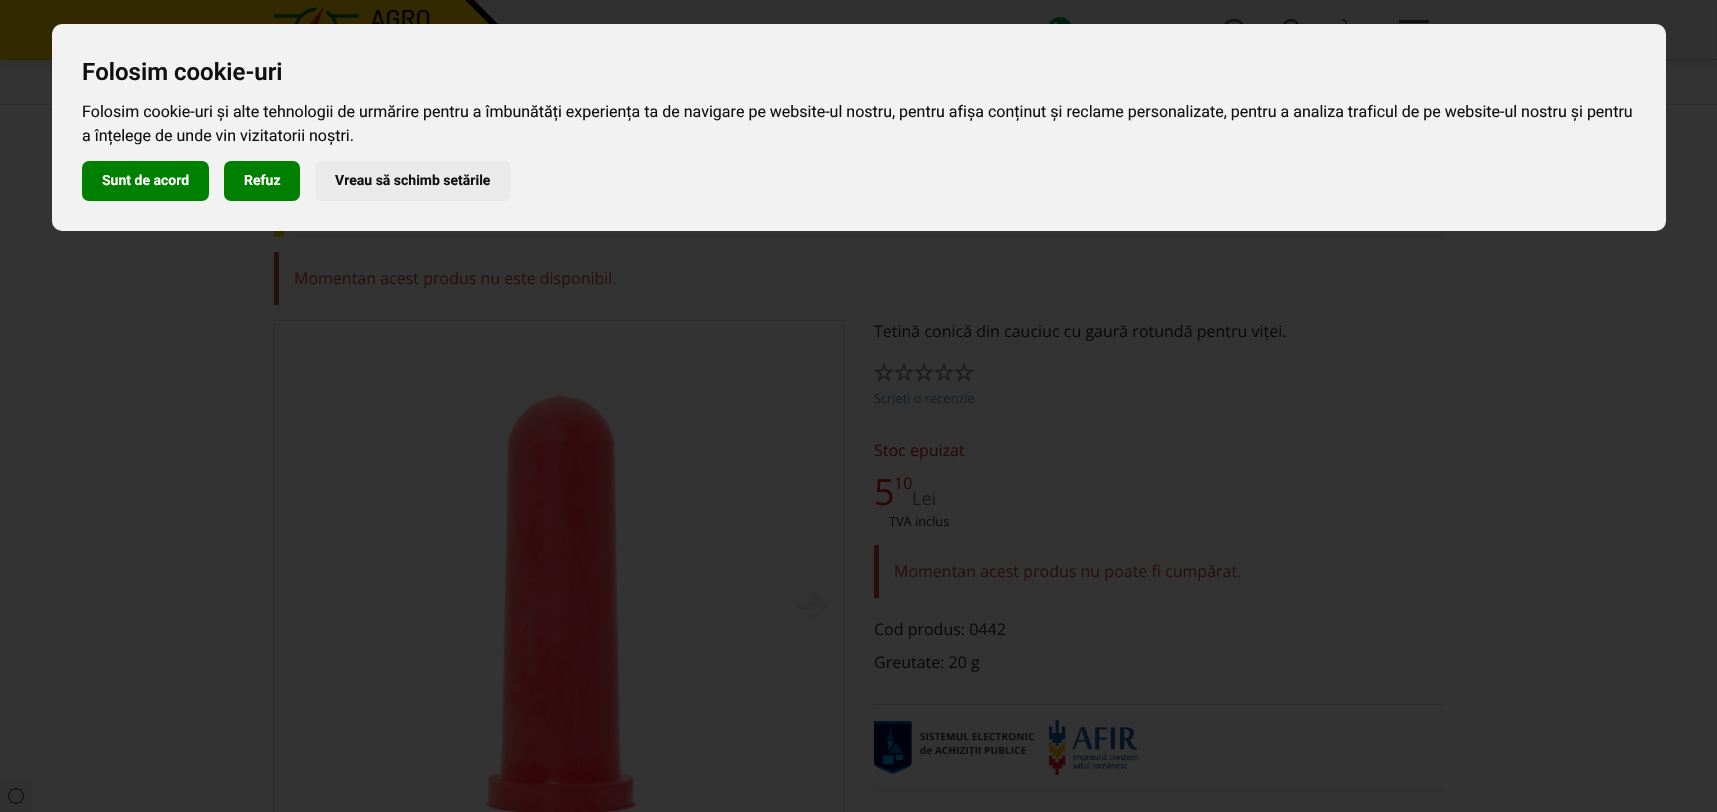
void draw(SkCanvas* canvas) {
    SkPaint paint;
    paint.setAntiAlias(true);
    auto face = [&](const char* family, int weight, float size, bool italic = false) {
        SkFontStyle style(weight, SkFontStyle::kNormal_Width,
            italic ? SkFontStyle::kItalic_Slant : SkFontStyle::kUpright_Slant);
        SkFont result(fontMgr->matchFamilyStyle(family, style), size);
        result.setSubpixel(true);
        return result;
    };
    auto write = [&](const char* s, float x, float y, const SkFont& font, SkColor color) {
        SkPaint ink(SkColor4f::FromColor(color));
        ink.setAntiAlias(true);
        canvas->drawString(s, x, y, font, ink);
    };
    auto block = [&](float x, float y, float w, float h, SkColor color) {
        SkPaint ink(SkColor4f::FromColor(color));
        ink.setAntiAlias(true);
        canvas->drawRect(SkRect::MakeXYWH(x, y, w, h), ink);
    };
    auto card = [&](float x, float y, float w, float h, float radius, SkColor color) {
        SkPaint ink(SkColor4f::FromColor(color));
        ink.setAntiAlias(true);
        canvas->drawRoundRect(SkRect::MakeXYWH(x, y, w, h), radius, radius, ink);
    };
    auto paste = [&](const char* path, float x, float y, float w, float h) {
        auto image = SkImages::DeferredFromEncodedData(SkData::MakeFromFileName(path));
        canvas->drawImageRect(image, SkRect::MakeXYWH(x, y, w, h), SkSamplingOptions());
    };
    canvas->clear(SkColorSetRGB(51, 51, 51));
    paint.setColor(SkColorSetARGB(51, 0, 0, 0));
    paint.setMaskFilter(SkMaskFilter::MakeBlur(kNormal_SkBlurStyle, 5));
    canvas->drawRect(SkRect::MakeXYWH(0, 0, 1717, 60), paint);
    paint.setMaskFilter(nullptr);
    block(465, 1, 1251, 58, SkColorSetRGB(48, 48, 48));
    block(1666, 59, 51, 1, SkColorSetRGB(41, 41, 41));
    block(0, 0, 274, 60, SkColorSetRGB(51, 41, 0));
    paste("pic1.png", 274, 0, 224, 24);
    paste("pic2.png", 1049, 17, 22, 7);
    paste("pic3.png", 1224, 19, 20, 5);
    paste("pic4.png", 1283, 19, 16, 5);
    paste("pic5.png", 1342, 19, 6, 5);
    block(1399, 20, 30, 3, SkColorSetRGB(17, 17, 17));
    block(0, 104, 1717, 1, SkColorSetRGB(44, 44, 44));
    card(52, 24, 1614, 207, 10, SkColorSetRGB(242, 242, 242));
    auto kFont1 = face("Roboto", 600, 24);
    write("Folosim cookie-uri", 82, 80, kFont1, SkColorSetRGB(17, 17, 17));
    auto kFont2 = face("Roboto", 400, 16);
    write("Folosim cookie-uri și alte tehnologii de urmărire pentru a îmbunătăți experiența ta de navigare pe website-ul nostru, pentru afișa conținut și reclame personalizate, pentru a analiza traficul de pe website-ul nostru și pentru", 82, 117, kFont2, SkColorSetRGB(17, 17, 17));
    write("a înțelege de unde vin vizitatorii noștri.", 82, 141, kFont2, SkColorSetRGB(17, 17, 17));
    card(82, 161, 127, 40, 7, SkColorSetRGB(0, 128, 0));
    auto kFont3 = face("Roboto", 700, 14);
    write("Sunt de acord", 102, 185, kFont3, SK_ColorWHITE);
    card(224, 161, 76, 40, 7, SkColorSetRGB(0, 128, 0));
    write("Refuz", 244, 185, kFont3, SK_ColorWHITE);
    card(315, 161, 196, 40, 7, SkColorSetRGB(234, 234, 234));
    write("Vreau să schimb setările", 335, 185, kFont3, SkColorSetRGB(17, 17, 17));
    block(274, 231, 10, 6, SkColorSetRGB(51, 41, 0));
    block(294, 234, 1150, 3, SkColorSetRGB(48, 48, 48));
    block(274, 252, 5, 53, SkColorSetRGB(41, 14, 14));
    auto kFont4 = face("Open Sans", 400, 16);
    write("Momentan acest produs nu este disponibil.", 294, 284, kFont4, SkColorSetRGB(41, 14, 14));
    paint.setStyle(SkPaint::kStroke_Style);
    paint.setStrokeWidth(1);
    paint.setColor(SkColorSetRGB(44, 44, 44));
    canvas->drawRect(SkRect::MakeXYWH(274.5f, 320.5f, 569, 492), paint);
    paste("pic6.png", 485, 393, 153, 419);
    paste("pic7.png", 797, 591, 30, 30);
    write("Tetină conică din cauciuc cu gaură rotundă pentru viței.", 874, 337, kFont4, SkColorSetRGB(10, 10, 10));
    paste("pic8.png", 874, 362, 20, 20);
    paste("pic8.png", 894, 362, 20, 20);
    paste("pic8.png", 914, 362, 20, 20);
    paste("pic8.png", 934, 362, 20, 20);
    paste("pic8.png", 954, 362, 20, 20);
    auto kFont5 = face("Open Sans", 400, 12.75f);
    write("Scrieți o recenzie", 874, 403, kFont5, SkColorSetRGB(18, 30, 39));
    write("Stoc epuizat", 874, 456, kFont4, SkColorSetRGB(43, 7, 3));
    auto kFont6 = face("Open Sans", 400, 36);
    write("5", 874, 505, kFont6, SkColorSetRGB(43, 7, 3));
    write("10", 894, 489, kFont4, SkColorSetRGB(43, 7, 3));
    auto kFont7 = face("Open Sans", 400, 18);
    write("Lei", 912, 505, kFont7, SkColorSetRGB(24, 24, 24));
    write("TVA inclus", 889, 526, kFont5, SkColorSetRGB(10, 10, 10));
    block(874, 545, 5, 53, SkColorSetRGB(41, 14, 14));
    write("Momentan acest produs nu poate fi cumpărat.", 894, 577, kFont4, SkColorSetRGB(41, 14, 14));
    write("Cod produs: 0442", 874, 635, kFont4, SkColorSetRGB(10, 10, 10));
    write("Greutate: 20 g", 874, 668, kFont4, SkColorSetRGB(10, 10, 10));
    block(874, 704, 570, 1, SkColorSetRGB(44, 44, 44));
    paste("pic9.png", 874, 721, 160, 53);
    paste("pic10.png", 1049, 720, 89, 55);
    block(874, 790, 570, 1, SkColorSetRGB(44, 44, 44));
    paint.setStyle(SkPaint::kFill_Style);
    paint.setColor(SkColorSetRGB(48, 48, 48));
    canvas->drawPath(SkPathBuilder().moveTo(0, 780).lineTo(27, 780).cubicTo(30, 780, 32, 782, 32, 785).lineTo(32, 812).lineTo(0, 812).close().detach(), paint);
    paste("pic11.png", 8, 788, 16, 16);
}
